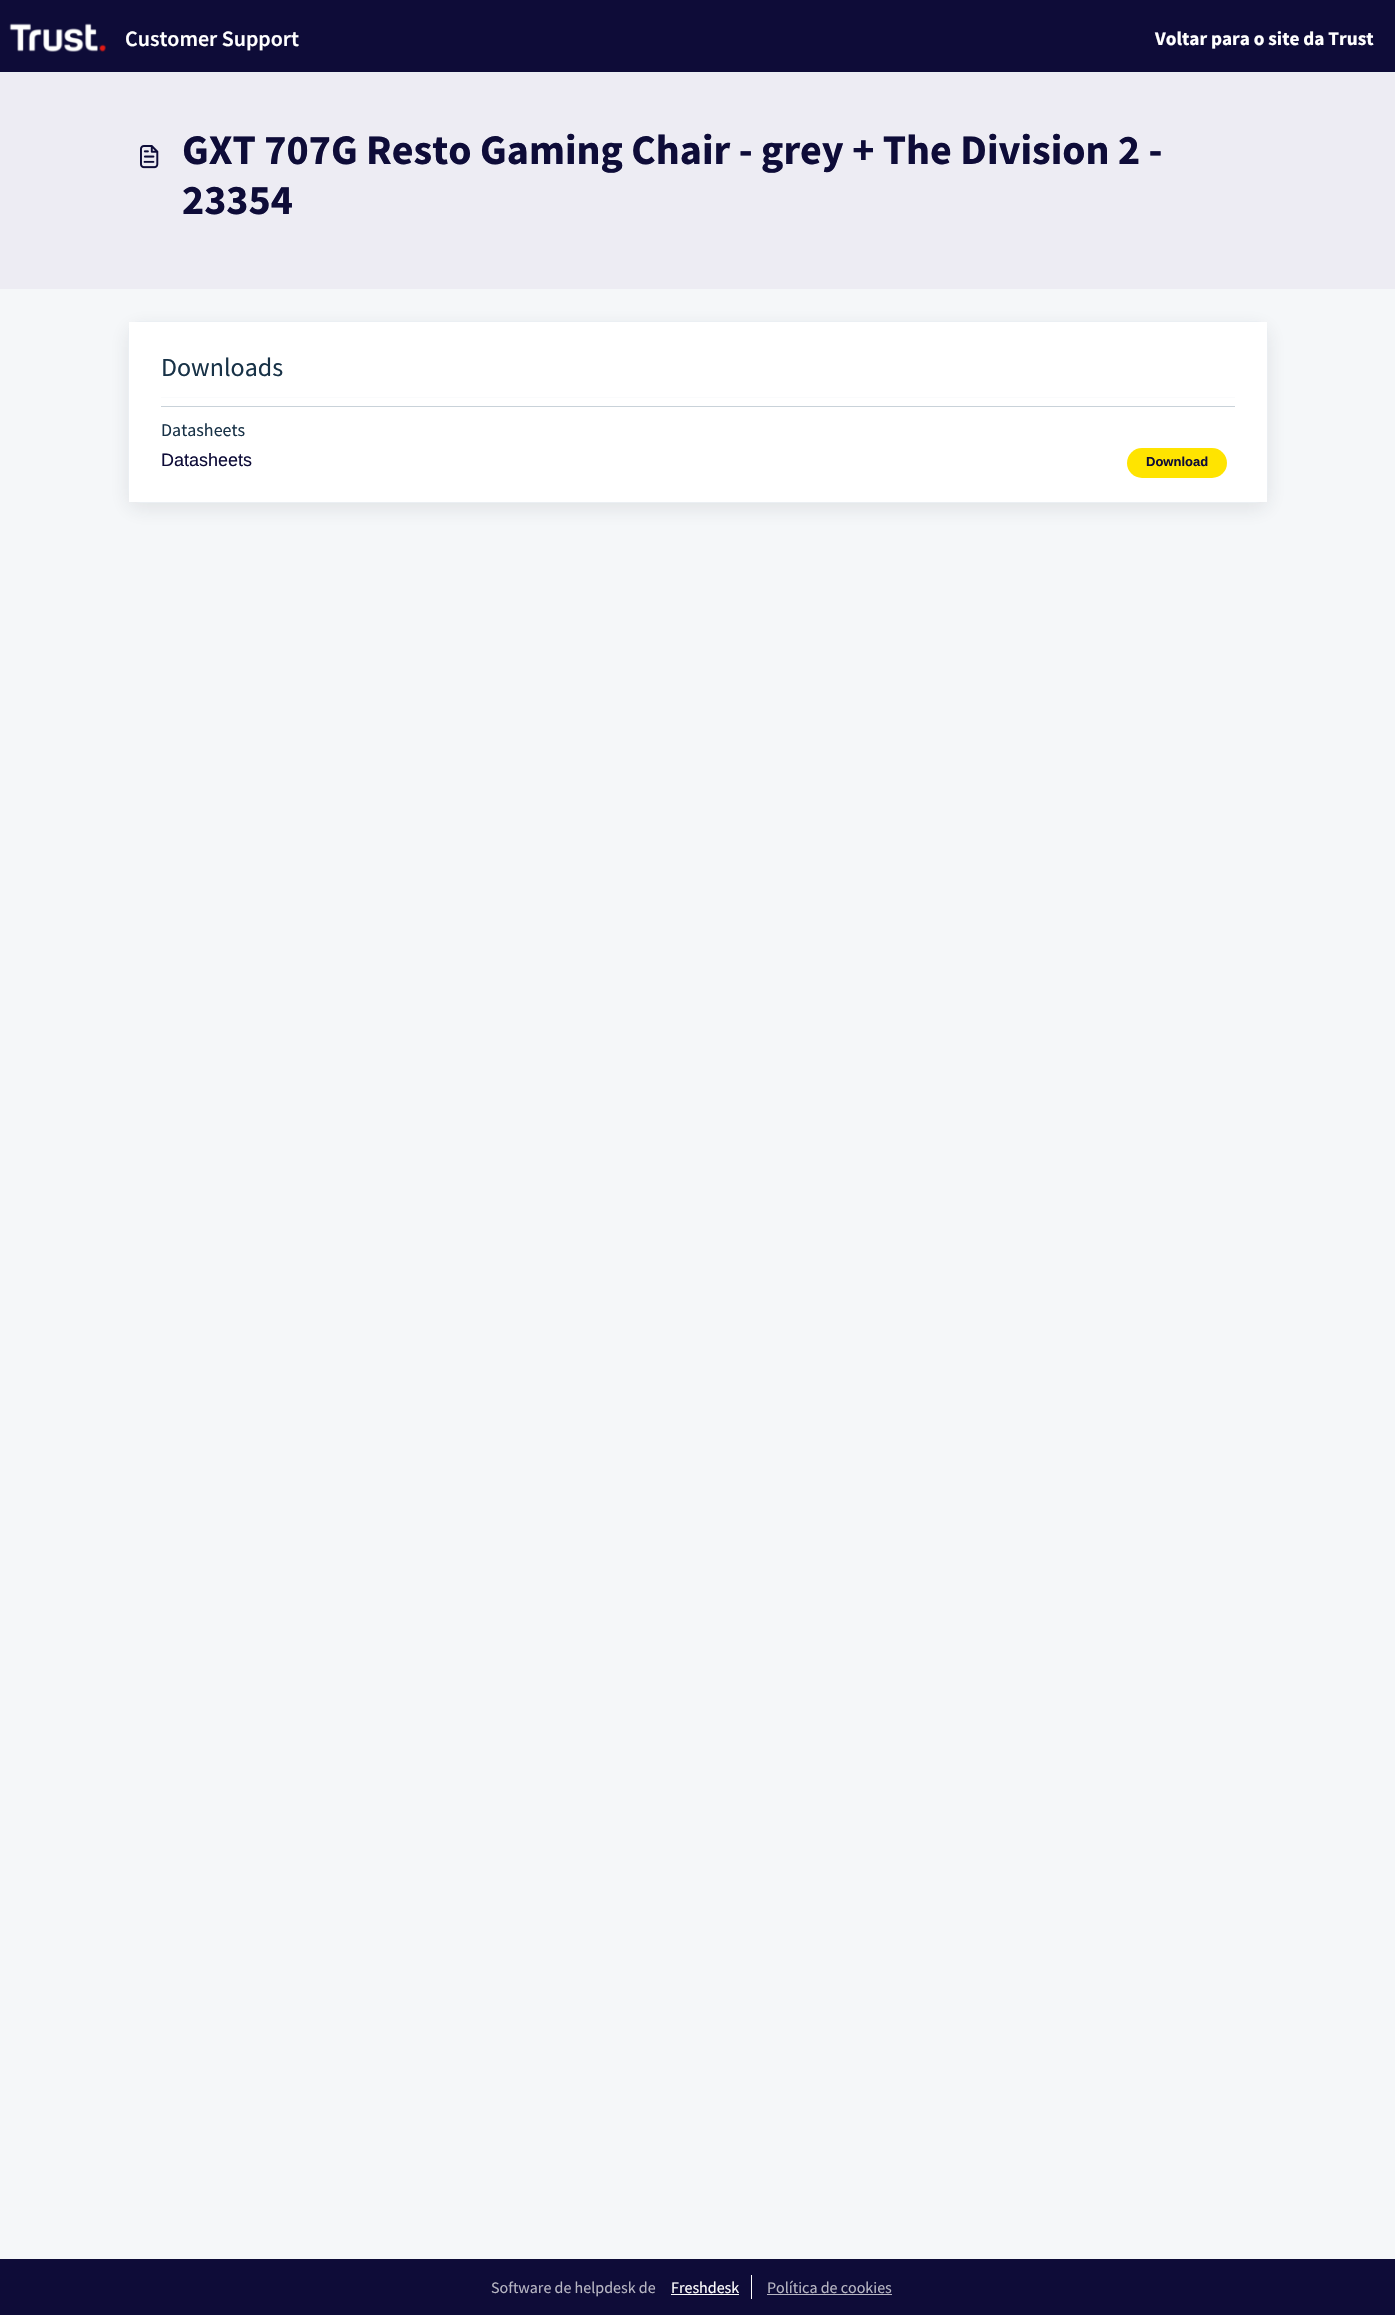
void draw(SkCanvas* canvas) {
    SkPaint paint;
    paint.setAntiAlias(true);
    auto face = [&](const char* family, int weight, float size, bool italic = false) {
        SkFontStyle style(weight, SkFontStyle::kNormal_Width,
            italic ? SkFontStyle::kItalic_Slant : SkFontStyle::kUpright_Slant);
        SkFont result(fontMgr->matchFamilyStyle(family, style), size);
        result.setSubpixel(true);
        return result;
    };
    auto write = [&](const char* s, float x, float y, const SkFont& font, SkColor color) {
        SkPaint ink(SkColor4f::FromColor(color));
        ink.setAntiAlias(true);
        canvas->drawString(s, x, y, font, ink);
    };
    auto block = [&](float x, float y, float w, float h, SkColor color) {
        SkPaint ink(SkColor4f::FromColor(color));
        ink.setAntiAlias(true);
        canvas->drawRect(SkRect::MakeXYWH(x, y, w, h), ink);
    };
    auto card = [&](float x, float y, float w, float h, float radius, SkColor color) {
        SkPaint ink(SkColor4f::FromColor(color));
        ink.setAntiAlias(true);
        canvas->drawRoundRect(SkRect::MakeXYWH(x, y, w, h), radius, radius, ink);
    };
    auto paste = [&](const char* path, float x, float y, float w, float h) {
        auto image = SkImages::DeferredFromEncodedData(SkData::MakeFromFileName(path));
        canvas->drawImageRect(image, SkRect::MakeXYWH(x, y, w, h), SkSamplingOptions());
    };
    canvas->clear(SkColorSetRGB(245, 247, 249));
    block(0, 0, 1395, 72, SkColorSetRGB(14, 12, 56));
    block(0, 72, 1395, 1, SkColorSetRGB(235, 239, 243));
    paste("pic1.png", 9, 23, 97, 29);
    auto kFont1 = face("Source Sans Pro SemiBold", 600, 22);
    write("Customer Support", 125, 46, kFont1, SK_ColorWHITE);
    auto kFont2 = face("Source Sans Pro", 700, 19.25f);
    write("Voltar para o site da Trust", 1155, 45, kFont2, SK_ColorWHITE);
    block(0, 73, 1395, 216, SkColorSetRGB(237, 236, 243));
    paste("pic2.png", 140, 145, 19, 24);
    auto kFont3 = face("Source Sans Pro", 700, 42);
    write("GXT 707G Resto Gaming Chair - grey + The Division 2 -", 182, 164, kFont3, SkColorSetRGB(14, 12, 56));
    write("23354", 182, 214, kFont3, SkColorSetRGB(14, 12, 56));
    paint.setColor(SkColorSetARGB(26, 39, 49, 58));
    paint.setMaskFilter(SkMaskFilter::MakeBlur(kNormal_SkBlurStyle, 9.5f));
    canvas->drawRoundRect(SkRect::MakeXYWH(128, 327, 1140, 182), 12, 12, paint);
    paint.setMaskFilter(nullptr);
    paint.setStyle(SkPaint::kStroke_Style);
    paint.setStrokeWidth(1);
    paint.setColor(SkColorSetRGB(235, 239, 243));
    canvas->drawRoundRect(SkRect::MakeXYWH(128.5f, 321.5f, 1139, 181), 11.5f, 11.5f, paint);
    block(129, 322, 1138, 180, SK_ColorWHITE);
    auto kFont4 = face("Source Sans Pro", 400, 26);
    write("Downloads", 161, 376, kFont4, SkColorSetRGB(24, 50, 71));
    block(161, 397, 1074, 1, SkColorSetRGB(250, 251, 252));
    block(161, 406, 1074, 1, SkColorSetRGB(201, 210, 217));
    auto kFont5 = face("Source Sans Pro", 400, 18);
    write("Datasheets", 161, 436, kFont5, SkColorSetRGB(24, 50, 71));
    auto kFont6 = face("Liberation Sans", 400, 18);
    write("Datasheets", 161, 466, kFont6, SkColorSetRGB(14, 12, 56));
    card(1127, 448, 100, 30, 15, SkColorSetRGB(255, 228, 0));
    auto kFont7 = face("Liberation Sans", 700, 13);
    write("Download", 1146, 466, kFont7, SkColorSetRGB(14, 12, 56));
    block(0, 2259, 1395, 56, SkColorSetRGB(14, 12, 56));
    auto kFont8 = face("Source Sans Pro", 400, 16);
    write("Software de helpdesk de", 491, 2293, kFont8, SkColorSetRGB(183, 182, 195));
    block(751, 2275, 1, 24, SK_ColorWHITE);
    write("Freshdesk", 671, 2293, kFont8, SK_ColorWHITE);
    block(671, 2294, 68, 1, SK_ColorWHITE);
    write("Política de cookies", 767, 2293, kFont8, SkColorSetRGB(183, 182, 195));
    block(767, 2294, 125, 1, SkColorSetRGB(183, 182, 195));
}
